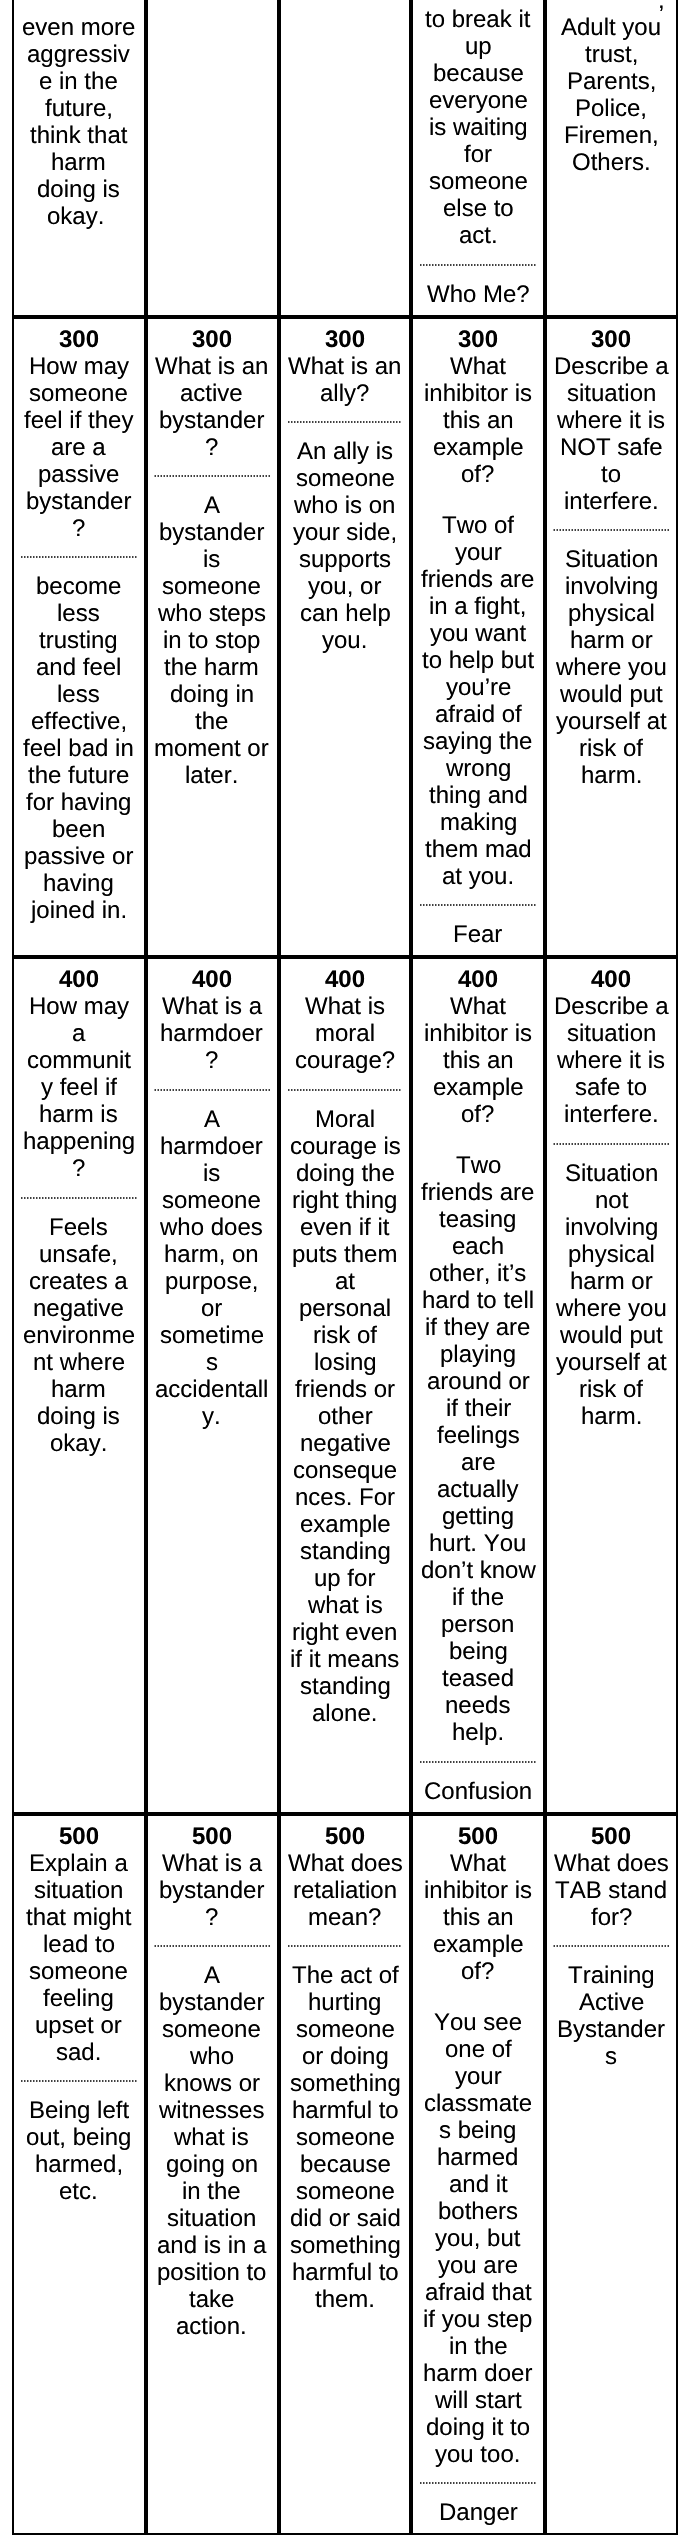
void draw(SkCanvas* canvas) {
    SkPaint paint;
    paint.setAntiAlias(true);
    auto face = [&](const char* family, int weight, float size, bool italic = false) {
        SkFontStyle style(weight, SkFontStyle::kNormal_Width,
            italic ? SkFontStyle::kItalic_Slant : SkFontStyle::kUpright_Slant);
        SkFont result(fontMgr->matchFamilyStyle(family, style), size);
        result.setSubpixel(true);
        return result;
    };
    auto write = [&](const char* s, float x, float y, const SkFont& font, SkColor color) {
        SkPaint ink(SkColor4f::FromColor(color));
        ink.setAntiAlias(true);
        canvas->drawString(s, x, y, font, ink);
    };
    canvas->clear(SK_ColorWHITE);
    paint.setStyle(SkPaint::kStroke_Style);
    paint.setStrokeWidth(2);
    paint.setColor(SK_ColorBLACK);
    canvas->drawRect(SkRect::MakeXYWH(13, -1, 132, 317), paint);
    auto kFont1 = face("Liberation Sans", 400, 24);
    write("even more", 22, 35, kFont1, SK_ColorBLACK);
    write("aggressiv", 27, 62, kFont1, SK_ColorBLACK);
    write("e in the", 39, 89, kFont1, SK_ColorBLACK);
    write("future,", 45, 116, kFont1, SK_ColorBLACK);
    write("think that", 30, 143, kFont1, SK_ColorBLACK);
    write("harm", 51, 170, kFont1, SK_ColorBLACK);
    write("doing is", 37, 197, kFont1, SK_ColorBLACK);
    write("okay.", 47, 224, kFont1, SK_ColorBLACK);
    canvas->drawRect(SkRect::MakeXYWH(147, -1, 131, 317), paint);
    canvas->drawRect(SkRect::MakeXYWH(280, -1, 130, 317), paint);
    canvas->drawRect(SkRect::MakeXYWH(412, -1, 132, 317), paint);
    write("to break it", 425, 27, kFont1, SK_ColorBLACK);
    write("up", 465, 54, kFont1, SK_ColorBLACK);
    write("because", 433, 81, kFont1, SK_ColorBLACK);
    write("everyone", 429, 108, kFont1, SK_ColorBLACK);
    write("is waiting", 429, 135, kFont1, SK_ColorBLACK);
    write("for", 464, 162, kFont1, SK_ColorBLACK);
    write("someone", 429, 189, kFont1, SK_ColorBLACK);
    write("else to", 443, 216, kFont1, SK_ColorBLACK);
    write("act.", 459, 243, kFont1, SK_ColorBLACK);
    paint.setStrokeWidth(1.5f);
    paint.setPathEffect(SkDashPathEffect::Make({{1.5f, 1.5f}}, 0));
    canvas->drawPath(SkPathBuilder().moveTo(420, 265).lineTo(535.5f, 265).detach(), paint);
    paint.setPathEffect(nullptr);
    write("Who Me?", 427, 302, kFont1, SK_ColorBLACK);
    paint.setStrokeWidth(2);
    canvas->drawRect(SkRect::MakeXYWH(546, -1, 131, 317), paint);
    write(",", 658, 8, kFont1, SK_ColorBLACK);
    write("Adult you", 561, 35, kFont1, SK_ColorBLACK);
    write("trust,", 585, 62, kFont1, SK_ColorBLACK);
    write("Parents,", 567, 89, kFont1, SK_ColorBLACK);
    write("Police,", 575, 116, kFont1, SK_ColorBLACK);
    write("Firemen,", 564, 143, kFont1, SK_ColorBLACK);
    write("Others.", 572, 170, kFont1, SK_ColorBLACK);
    canvas->drawRect(SkRect::MakeXYWH(13, 318, 132, 638), paint);
    auto kFont2 = face("Liberation Sans", 700, 24);
    write("300", 59, 347, kFont2, SK_ColorBLACK);
    write("How may", 29, 374, kFont1, SK_ColorBLACK);
    write("someone", 29, 401, kFont1, SK_ColorBLACK);
    write("feel if they", 24, 428, kFont1, SK_ColorBLACK);
    write("are a", 51, 455, kFont1, SK_ColorBLACK);
    write("passive", 38, 482, kFont1, SK_ColorBLACK);
    write("bystander", 26, 509, kFont1, SK_ColorBLACK);
    write("?", 72, 536, kFont1, SK_ColorBLACK);
    paint.setStrokeWidth(1.5f);
    paint.setPathEffect(SkDashPathEffect::Make({{1.5f, 1.5f}}, 0));
    canvas->drawPath(SkPathBuilder().moveTo(21, 557).lineTo(136.5f, 557).detach(), paint);
    paint.setPathEffect(nullptr);
    write("become", 36, 594, kFont1, SK_ColorBLACK);
    write("less", 57, 621, kFont1, SK_ColorBLACK);
    write("trusting", 39, 648, kFont1, SK_ColorBLACK);
    write("and feel", 36, 675, kFont1, SK_ColorBLACK);
    write("less", 57, 702, kFont1, SK_ColorBLACK);
    write("effective,", 31, 729, kFont1, SK_ColorBLACK);
    write("feel bad in", 23, 756, kFont1, SK_ColorBLACK);
    write("the future", 28, 783, kFont1, SK_ColorBLACK);
    write("for having", 26, 810, kFont1, SK_ColorBLACK);
    write("been", 52, 837, kFont1, SK_ColorBLACK);
    write("passive or", 24, 864, kFont1, SK_ColorBLACK);
    write("having", 43, 891, kFont1, SK_ColorBLACK);
    write("joined in.", 31, 918, kFont1, SK_ColorBLACK);
    paint.setStrokeWidth(2);
    canvas->drawRect(SkRect::MakeXYWH(147, 318, 131, 638), paint);
    write("300", 192, 347, kFont2, SK_ColorBLACK);
    write("What is an", 155, 374, kFont1, SK_ColorBLACK);
    write("active", 180, 401, kFont1, SK_ColorBLACK);
    write("bystander", 159, 428, kFont1, SK_ColorBLACK);
    write("?", 205, 455, kFont1, SK_ColorBLACK);
    paint.setStrokeWidth(1.5f);
    paint.setPathEffect(SkDashPathEffect::Make({{1.5f, 1.5f}}, 0));
    canvas->drawPath(SkPathBuilder().moveTo(154.5f, 476).lineTo(270, 476).detach(), paint);
    paint.setPathEffect(nullptr);
    write("A", 204, 513, kFont1, SK_ColorBLACK);
    write("bystander", 159, 540, kFont1, SK_ColorBLACK);
    write("is", 203, 567, kFont1, SK_ColorBLACK);
    write("someone", 162, 594, kFont1, SK_ColorBLACK);
    write("who steps", 158, 621, kFont1, SK_ColorBLACK);
    write("in to stop", 163, 648, kFont1, SK_ColorBLACK);
    write("the harm", 164, 675, kFont1, SK_ColorBLACK);
    write("doing in", 170, 702, kFont1, SK_ColorBLACK);
    write("the", 195, 729, kFont1, SK_ColorBLACK);
    write("moment or", 154, 756, kFont1, SK_ColorBLACK);
    write("later.", 185, 783, kFont1, SK_ColorBLACK);
    paint.setStrokeWidth(2);
    canvas->drawRect(SkRect::MakeXYWH(280, 318, 130, 638), paint);
    write("300", 325, 347, kFont2, SK_ColorBLACK);
    write("What is an", 288, 374, kFont1, SK_ColorBLACK);
    write("ally?", 320, 401, kFont1, SK_ColorBLACK);
    paint.setStrokeWidth(1.5f);
    paint.setPathEffect(SkDashPathEffect::Make({{1.5f, 1.5f}}, 0));
    canvas->drawPath(SkPathBuilder().moveTo(288, 422).lineTo(402, 422).detach(), paint);
    paint.setPathEffect(nullptr);
    write("An ally is", 297, 459, kFont1, SK_ColorBLACK);
    write("someone", 296, 486, kFont1, SK_ColorBLACK);
    write("who is on", 294, 513, kFont1, SK_ColorBLACK);
    write("your side,", 293, 540, kFont1, SK_ColorBLACK);
    write("supports", 299, 567, kFont1, SK_ColorBLACK);
    write("you, or", 308, 594, kFont1, SK_ColorBLACK);
    write("can help", 300, 621, kFont1, SK_ColorBLACK);
    write("you.", 322, 648, kFont1, SK_ColorBLACK);
    paint.setStrokeWidth(2);
    canvas->drawRect(SkRect::MakeXYWH(412, 318, 132, 638), paint);
    write("300", 458, 347, kFont2, SK_ColorBLACK);
    write("What", 450, 374, kFont1, SK_ColorBLACK);
    write("inhibitor is", 424, 401, kFont1, SK_ColorBLACK);
    write("this an", 443, 428, kFont1, SK_ColorBLACK);
    write("example", 433, 455, kFont1, SK_ColorBLACK);
    write("of?", 461, 482, kFont1, SK_ColorBLACK);
    write("Two of", 442, 533, kFont1, SK_ColorBLACK);
    write("your", 455, 560, kFont1, SK_ColorBLACK);
    write("friends are", 421, 587, kFont1, SK_ColorBLACK);
    write("in a fight,", 429, 614, kFont1, SK_ColorBLACK);
    write("you want", 430, 641, kFont1, SK_ColorBLACK);
    write("to help but", 422, 668, kFont1, SK_ColorBLACK);
    write("you’re", 446, 695, kFont1, SK_ColorBLACK);
    write("afraid of", 435, 722, kFont1, SK_ColorBLACK);
    write("saying the", 423, 749, kFont1, SK_ColorBLACK);
    write("wrong", 446, 776, kFont1, SK_ColorBLACK);
    write("thing and", 429, 803, kFont1, SK_ColorBLACK);
    write("making", 440, 830, kFont1, SK_ColorBLACK);
    write("them mad", 425, 857, kFont1, SK_ColorBLACK);
    write("at you.", 442, 884, kFont1, SK_ColorBLACK);
    paint.setStrokeWidth(1.5f);
    paint.setPathEffect(SkDashPathEffect::Make({{1.5f, 1.5f}}, 0));
    canvas->drawPath(SkPathBuilder().moveTo(420, 905).lineTo(535.5f, 905).detach(), paint);
    paint.setPathEffect(nullptr);
    write("Fear", 453, 942, kFont1, SK_ColorBLACK);
    paint.setStrokeWidth(2);
    canvas->drawRect(SkRect::MakeXYWH(546, 318, 131, 638), paint);
    write("300", 591, 347, kFont2, SK_ColorBLACK);
    write("Describe a", 554, 374, kFont1, SK_ColorBLACK);
    write("situation", 567, 401, kFont1, SK_ColorBLACK);
    write("where it is", 557, 428, kFont1, SK_ColorBLACK);
    write("NOT safe", 560, 455, kFont1, SK_ColorBLACK);
    write("to", 601, 482, kFont1, SK_ColorBLACK);
    write("interfere.", 564, 509, kFont1, SK_ColorBLACK);
    paint.setStrokeWidth(1.5f);
    paint.setPathEffect(SkDashPathEffect::Make({{1.5f, 1.5f}}, 0));
    canvas->drawPath(SkPathBuilder().moveTo(553.5f, 530).lineTo(669, 530).detach(), paint);
    paint.setPathEffect(nullptr);
    write("Situation", 565, 567, kFont1, SK_ColorBLACK);
    write("involving", 565, 594, kFont1, SK_ColorBLACK);
    write("physical", 568, 621, kFont1, SK_ColorBLACK);
    write("harm or", 570, 648, kFont1, SK_ColorBLACK);
    write("where you", 556, 675, kFont1, SK_ColorBLACK);
    write("would put", 560, 702, kFont1, SK_ColorBLACK);
    write("yourself at", 556, 729, kFont1, SK_ColorBLACK);
    write("risk of", 579, 756, kFont1, SK_ColorBLACK);
    write("harm.", 581, 783, kFont1, SK_ColorBLACK);
    paint.setStrokeWidth(2);
    canvas->drawRect(SkRect::MakeXYWH(13, 958, 132, 855), paint);
    write("400", 59, 987, kFont2, SK_ColorBLACK);
    write("How may", 29, 1014, kFont1, SK_ColorBLACK);
    write("a", 72, 1041, kFont1, SK_ColorBLACK);
    write("communit", 27, 1068, kFont1, SK_ColorBLACK);
    write("y feel if", 41, 1095, kFont1, SK_ColorBLACK);
    write("harm is", 39, 1122, kFont1, SK_ColorBLACK);
    write("happening", 23, 1149, kFont1, SK_ColorBLACK);
    write("?", 72, 1176, kFont1, SK_ColorBLACK);
    paint.setStrokeWidth(1.5f);
    paint.setPathEffect(SkDashPathEffect::Make({{1.5f, 1.5f}}, 0));
    canvas->drawPath(SkPathBuilder().moveTo(21, 1198).lineTo(136.5f, 1198).detach(), paint);
    paint.setPathEffect(nullptr);
    write("Feels", 49, 1235, kFont1, SK_ColorBLACK);
    write("unsafe,", 39, 1262, kFont1, SK_ColorBLACK);
    write("creates a", 29, 1289, kFont1, SK_ColorBLACK);
    write("negative", 33, 1316, kFont1, SK_ColorBLACK);
    write("environme", 23, 1343, kFont1, SK_ColorBLACK);
    write("nt where", 33, 1370, kFont1, SK_ColorBLACK);
    write("harm", 51, 1397, kFont1, SK_ColorBLACK);
    write("doing is", 37, 1424, kFont1, SK_ColorBLACK);
    write("okay.", 50, 1451, kFont1, SK_ColorBLACK);
    paint.setStrokeWidth(2);
    canvas->drawRect(SkRect::MakeXYWH(147, 958, 131, 855), paint);
    write("400", 192, 987, kFont2, SK_ColorBLACK);
    write("What is a", 162, 1014, kFont1, SK_ColorBLACK);
    write("harmdoer", 160, 1041, kFont1, SK_ColorBLACK);
    write("?", 205, 1068, kFont1, SK_ColorBLACK);
    paint.setStrokeWidth(1.5f);
    paint.setPathEffect(SkDashPathEffect::Make({{1.5f, 1.5f}}, 0));
    canvas->drawPath(SkPathBuilder().moveTo(154.5f, 1090).lineTo(270, 1090).detach(), paint);
    paint.setPathEffect(nullptr);
    write("A", 204, 1127, kFont1, SK_ColorBLACK);
    write("harmdoer", 160, 1154, kFont1, SK_ColorBLACK);
    write("is", 203, 1181, kFont1, SK_ColorBLACK);
    write("someone", 162, 1208, kFont1, SK_ColorBLACK);
    write("who does", 160, 1235, kFont1, SK_ColorBLACK);
    write("harm, on", 164, 1262, kFont1, SK_ColorBLACK);
    write("purpose,", 165, 1289, kFont1, SK_ColorBLACK);
    write("or", 201, 1316, kFont1, SK_ColorBLACK);
    write("sometime", 160, 1343, kFont1, SK_ColorBLACK);
    write("s", 206, 1370, kFont1, SK_ColorBLACK);
    write("accidentall", 155, 1397, kFont1, SK_ColorBLACK);
    write("y.", 202, 1424, kFont1, SK_ColorBLACK);
    paint.setStrokeWidth(2);
    canvas->drawRect(SkRect::MakeXYWH(280, 958, 130, 855), paint);
    write("400", 325, 987, kFont2, SK_ColorBLACK);
    write("What is", 305, 1014, kFont1, SK_ColorBLACK);
    write("moral", 315, 1041, kFont1, SK_ColorBLACK);
    write("courage?", 295, 1068, kFont1, SK_ColorBLACK);
    paint.setStrokeWidth(1.5f);
    paint.setPathEffect(SkDashPathEffect::Make({{1.5f, 1.5f}}, 0));
    canvas->drawPath(SkPathBuilder().moveTo(288, 1090).lineTo(402, 1090).detach(), paint);
    paint.setPathEffect(nullptr);
    write("Moral", 315, 1127, kFont1, SK_ColorBLACK);
    write("courage is", 290, 1154, kFont1, SK_ColorBLACK);
    write("doing the", 296, 1181, kFont1, SK_ColorBLACK);
    write("right thing", 292, 1208, kFont1, SK_ColorBLACK);
    write("even if it", 300, 1235, kFont1, SK_ColorBLACK);
    write("puts them", 292, 1262, kFont1, SK_ColorBLACK);
    write("at", 335, 1289, kFont1, SK_ColorBLACK);
    write("personal", 299, 1316, kFont1, SK_ColorBLACK);
    write("risk of", 313, 1343, kFont1, SK_ColorBLACK);
    write("losing", 314, 1370, kFont1, SK_ColorBLACK);
    write("friends or", 295, 1397, kFont1, SK_ColorBLACK);
    write("other", 318, 1424, kFont1, SK_ColorBLACK);
    write("negative", 300, 1451, kFont1, SK_ColorBLACK);
    write("conseque", 293, 1478, kFont1, SK_ColorBLACK);
    write("nces. For", 295, 1505, kFont1, SK_ColorBLACK);
    write("example", 300, 1532, kFont1, SK_ColorBLACK);
    write("standing", 300, 1559, kFont1, SK_ColorBLACK);
    write("up for", 314, 1586, kFont1, SK_ColorBLACK);
    write("what is", 308, 1613, kFont1, SK_ColorBLACK);
    write("right even", 292, 1640, kFont1, SK_ColorBLACK);
    write("if it means", 290, 1667, kFont1, SK_ColorBLACK);
    write("standing", 300, 1694, kFont1, SK_ColorBLACK);
    write("alone.", 312, 1721, kFont1, SK_ColorBLACK);
    paint.setStrokeWidth(2);
    canvas->drawRect(SkRect::MakeXYWH(412, 958, 132, 855), paint);
    write("400", 458, 987, kFont2, SK_ColorBLACK);
    write("What", 450, 1014, kFont1, SK_ColorBLACK);
    write("inhibitor is", 424, 1041, kFont1, SK_ColorBLACK);
    write("this an", 443, 1068, kFont1, SK_ColorBLACK);
    write("example", 433, 1095, kFont1, SK_ColorBLACK);
    write("of?", 461, 1122, kFont1, SK_ColorBLACK);
    write("Two", 456, 1173, kFont1, SK_ColorBLACK);
    write("friends are", 421, 1200, kFont1, SK_ColorBLACK);
    write("teasing", 439, 1227, kFont1, SK_ColorBLACK);
    write("each", 452, 1254, kFont1, SK_ColorBLACK);
    write("other, it’s", 429, 1281, kFont1, SK_ColorBLACK);
    write("hard to tell", 422, 1308, kFont1, SK_ColorBLACK);
    write("if they are", 425, 1335, kFont1, SK_ColorBLACK);
    write("playing", 440, 1362, kFont1, SK_ColorBLACK);
    write("around or", 427, 1389, kFont1, SK_ColorBLACK);
    write("if their", 446, 1416, kFont1, SK_ColorBLACK);
    write("feelings", 437, 1443, kFont1, SK_ColorBLACK);
    write("are", 461, 1470, kFont1, SK_ColorBLACK);
    write("actually", 437, 1497, kFont1, SK_ColorBLACK);
    write("getting", 442, 1524, kFont1, SK_ColorBLACK);
    write("hurt. You", 429, 1551, kFont1, SK_ColorBLACK);
    write("don’t know", 421, 1578, kFont1, SK_ColorBLACK);
    write("if the", 452, 1605, kFont1, SK_ColorBLACK);
    write("person", 441, 1632, kFont1, SK_ColorBLACK);
    write("being", 449, 1659, kFont1, SK_ColorBLACK);
    write("teased", 442, 1686, kFont1, SK_ColorBLACK);
    write("needs", 445, 1713, kFont1, SK_ColorBLACK);
    write("help.", 452, 1740, kFont1, SK_ColorBLACK);
    paint.setStrokeWidth(1.5f);
    paint.setPathEffect(SkDashPathEffect::Make({{1.5f, 1.5f}}, 0));
    canvas->drawPath(SkPathBuilder().moveTo(420, 1762).lineTo(535.5f, 1762).detach(), paint);
    paint.setPathEffect(nullptr);
    write("Confusion", 424, 1799, kFont1, SK_ColorBLACK);
    paint.setStrokeWidth(2);
    canvas->drawRect(SkRect::MakeXYWH(546, 958, 131, 855), paint);
    write("400", 591, 987, kFont2, SK_ColorBLACK);
    write("Describe a", 554, 1014, kFont1, SK_ColorBLACK);
    write("situation", 567, 1041, kFont1, SK_ColorBLACK);
    write("where it is", 557, 1068, kFont1, SK_ColorBLACK);
    write("safe to", 575, 1095, kFont1, SK_ColorBLACK);
    write("interfere.", 564, 1122, kFont1, SK_ColorBLACK);
    paint.setStrokeWidth(1.5f);
    paint.setPathEffect(SkDashPathEffect::Make({{1.5f, 1.5f}}, 0));
    canvas->drawPath(SkPathBuilder().moveTo(553.5f, 1144).lineTo(669, 1144).detach(), paint);
    paint.setPathEffect(nullptr);
    write("Situation", 565, 1181, kFont1, SK_ColorBLACK);
    write("not", 595, 1208, kFont1, SK_ColorBLACK);
    write("involving", 565, 1235, kFont1, SK_ColorBLACK);
    write("physical", 568, 1262, kFont1, SK_ColorBLACK);
    write("harm or", 570, 1289, kFont1, SK_ColorBLACK);
    write("where you", 556, 1316, kFont1, SK_ColorBLACK);
    write("would put", 560, 1343, kFont1, SK_ColorBLACK);
    write("yourself at", 556, 1370, kFont1, SK_ColorBLACK);
    write("risk of", 579, 1397, kFont1, SK_ColorBLACK);
    write("harm.", 581, 1424, kFont1, SK_ColorBLACK);
    paint.setStrokeWidth(2);
    canvas->drawRect(SkRect::MakeXYWH(13, 1815, 132, 719), paint);
    write("500", 59, 1844, kFont2, SK_ColorBLACK);
    write("Explain a", 29, 1871, kFont1, SK_ColorBLACK);
    write("situation", 34, 1898, kFont1, SK_ColorBLACK);
    write("that might", 26, 1925, kFont1, SK_ColorBLACK);
    write("lead to", 43, 1952, kFont1, SK_ColorBLACK);
    write("someone", 29, 1979, kFont1, SK_ColorBLACK);
    write("feeling", 43, 2006, kFont1, SK_ColorBLACK);
    write("upset or", 35, 2033, kFont1, SK_ColorBLACK);
    write("sad.", 56, 2060, kFont1, SK_ColorBLACK);
    paint.setStrokeWidth(1.5f);
    paint.setPathEffect(SkDashPathEffect::Make({{1.5f, 1.5f}}, 0));
    canvas->drawPath(SkPathBuilder().moveTo(21, 2081).lineTo(136.5f, 2081).detach(), paint);
    paint.setPathEffect(nullptr);
    write("Being left", 29, 2118, kFont1, SK_ColorBLACK);
    write("out, being", 26, 2145, kFont1, SK_ColorBLACK);
    write("harmed,", 35, 2172, kFont1, SK_ColorBLACK);
    write("etc.", 59, 2199, kFont1, SK_ColorBLACK);
    paint.setStrokeWidth(2);
    canvas->drawRect(SkRect::MakeXYWH(147, 1815, 131, 719), paint);
    write("500", 192, 1844, kFont2, SK_ColorBLACK);
    write("What is a", 162, 1871, kFont1, SK_ColorBLACK);
    write("bystander", 159, 1898, kFont1, SK_ColorBLACK);
    write("?", 205, 1925, kFont1, SK_ColorBLACK);
    paint.setStrokeWidth(1.5f);
    paint.setPathEffect(SkDashPathEffect::Make({{1.5f, 1.5f}}, 0));
    canvas->drawPath(SkPathBuilder().moveTo(154.5f, 1946).lineTo(270, 1946).detach(), paint);
    paint.setPathEffect(nullptr);
    write("A", 204, 1983, kFont1, SK_ColorBLACK);
    write("bystander", 159, 2010, kFont1, SK_ColorBLACK);
    write("someone", 162, 2037, kFont1, SK_ColorBLACK);
    write("who", 190, 2064, kFont1, SK_ColorBLACK);
    write("knows or", 164, 2091, kFont1, SK_ColorBLACK);
    write("witnesses", 159, 2118, kFont1, SK_ColorBLACK);
    write("what is", 174, 2145, kFont1, SK_ColorBLACK);
    write("going on", 166, 2172, kFont1, SK_ColorBLACK);
    write("in the", 182, 2199, kFont1, SK_ColorBLACK);
    write("situation", 167, 2226, kFont1, SK_ColorBLACK);
    write("and is in a", 157, 2253, kFont1, SK_ColorBLACK);
    write("position to", 157, 2280, kFont1, SK_ColorBLACK);
    write("take", 189, 2307, kFont1, SK_ColorBLACK);
    write("action.", 176, 2334, kFont1, SK_ColorBLACK);
    paint.setStrokeWidth(2);
    canvas->drawRect(SkRect::MakeXYWH(280, 1815, 130, 719), paint);
    write("500", 325, 1844, kFont2, SK_ColorBLACK);
    write("What does", 288, 1871, kFont1, SK_ColorBLACK);
    write("retaliation", 293, 1898, kFont1, SK_ColorBLACK);
    write("mean?", 308, 1925, kFont1, SK_ColorBLACK);
    paint.setStrokeWidth(1.5f);
    paint.setPathEffect(SkDashPathEffect::Make({{1.5f, 1.5f}}, 0));
    canvas->drawPath(SkPathBuilder().moveTo(288, 1946).lineTo(402, 1946).detach(), paint);
    paint.setPathEffect(nullptr);
    write("The act of", 292, 1983, kFont1, SK_ColorBLACK);
    write("hurting", 308, 2010, kFont1, SK_ColorBLACK);
    write("someone", 296, 2037, kFont1, SK_ColorBLACK);
    write("or doing", 302, 2064, kFont1, SK_ColorBLACK);
    write("something", 290, 2091, kFont1, SK_ColorBLACK);
    write("harmful to", 292, 2118, kFont1, SK_ColorBLACK);
    write("someone", 296, 2145, kFont1, SK_ColorBLACK);
    write("because", 300, 2172, kFont1, SK_ColorBLACK);
    write("someone", 296, 2199, kFont1, SK_ColorBLACK);
    write("did or said", 290, 2226, kFont1, SK_ColorBLACK);
    write("something", 290, 2253, kFont1, SK_ColorBLACK);
    write("harmful to", 292, 2280, kFont1, SK_ColorBLACK);
    write("them.", 315, 2307, kFont1, SK_ColorBLACK);
    paint.setStrokeWidth(2);
    canvas->drawRect(SkRect::MakeXYWH(412, 1815, 132, 719), paint);
    write("500", 458, 1844, kFont2, SK_ColorBLACK);
    write("What", 450, 1871, kFont1, SK_ColorBLACK);
    write("inhibitor is", 424, 1898, kFont1, SK_ColorBLACK);
    write("this an", 443, 1925, kFont1, SK_ColorBLACK);
    write("example", 433, 1952, kFont1, SK_ColorBLACK);
    write("of?", 461, 1979, kFont1, SK_ColorBLACK);
    write("You see", 434, 2030, kFont1, SK_ColorBLACK);
    write("one of", 445, 2057, kFont1, SK_ColorBLACK);
    write("your", 455, 2084, kFont1, SK_ColorBLACK);
    write("classmate", 424, 2111, kFont1, SK_ColorBLACK);
    write("s being", 439, 2138, kFont1, SK_ColorBLACK);
    write("harmed", 437, 2165, kFont1, SK_ColorBLACK);
    write("and it", 449, 2192, kFont1, SK_ColorBLACK);
    write("bothers", 438, 2219, kFont1, SK_ColorBLACK);
    write("you, but", 435, 2246, kFont1, SK_ColorBLACK);
    write("you are", 438, 2273, kFont1, SK_ColorBLACK);
    write("afraid that", 425, 2300, kFont1, SK_ColorBLACK);
    write("if you step", 423, 2327, kFont1, SK_ColorBLACK);
    write("in the", 449, 2354, kFont1, SK_ColorBLACK);
    write("harm doer", 423, 2381, kFont1, SK_ColorBLACK);
    write("will start", 435, 2408, kFont1, SK_ColorBLACK);
    write("doing it to", 426, 2435, kFont1, SK_ColorBLACK);
    write("you too.", 435, 2462, kFont1, SK_ColorBLACK);
    paint.setStrokeWidth(1.5f);
    paint.setPathEffect(SkDashPathEffect::Make({{1.5f, 1.5f}}, 0));
    canvas->drawPath(SkPathBuilder().moveTo(420, 2483).lineTo(535.5f, 2483).detach(), paint);
    paint.setPathEffect(nullptr);
    write("Danger", 439, 2520, kFont1, SK_ColorBLACK);
    paint.setStrokeWidth(2);
    canvas->drawRect(SkRect::MakeXYWH(546, 1815, 131, 719), paint);
    write("500", 591, 1844, kFont2, SK_ColorBLACK);
    write("What does", 554, 1871, kFont1, SK_ColorBLACK);
    write("TAB stand", 555, 1898, kFont1, SK_ColorBLACK);
    write("for?", 591, 1925, kFont1, SK_ColorBLACK);
    paint.setStrokeWidth(1.5f);
    paint.setPathEffect(SkDashPathEffect::Make({{1.5f, 1.5f}}, 0));
    canvas->drawPath(SkPathBuilder().moveTo(553.5f, 1946).lineTo(669, 1946).detach(), paint);
    paint.setPathEffect(nullptr);
    write("Training", 568, 1983, kFont1, SK_ColorBLACK);
    write("Active", 579, 2010, kFont1, SK_ColorBLACK);
    write("Bystander", 557, 2037, kFont1, SK_ColorBLACK);
    write("s", 605, 2064, kFont1, SK_ColorBLACK);
}
